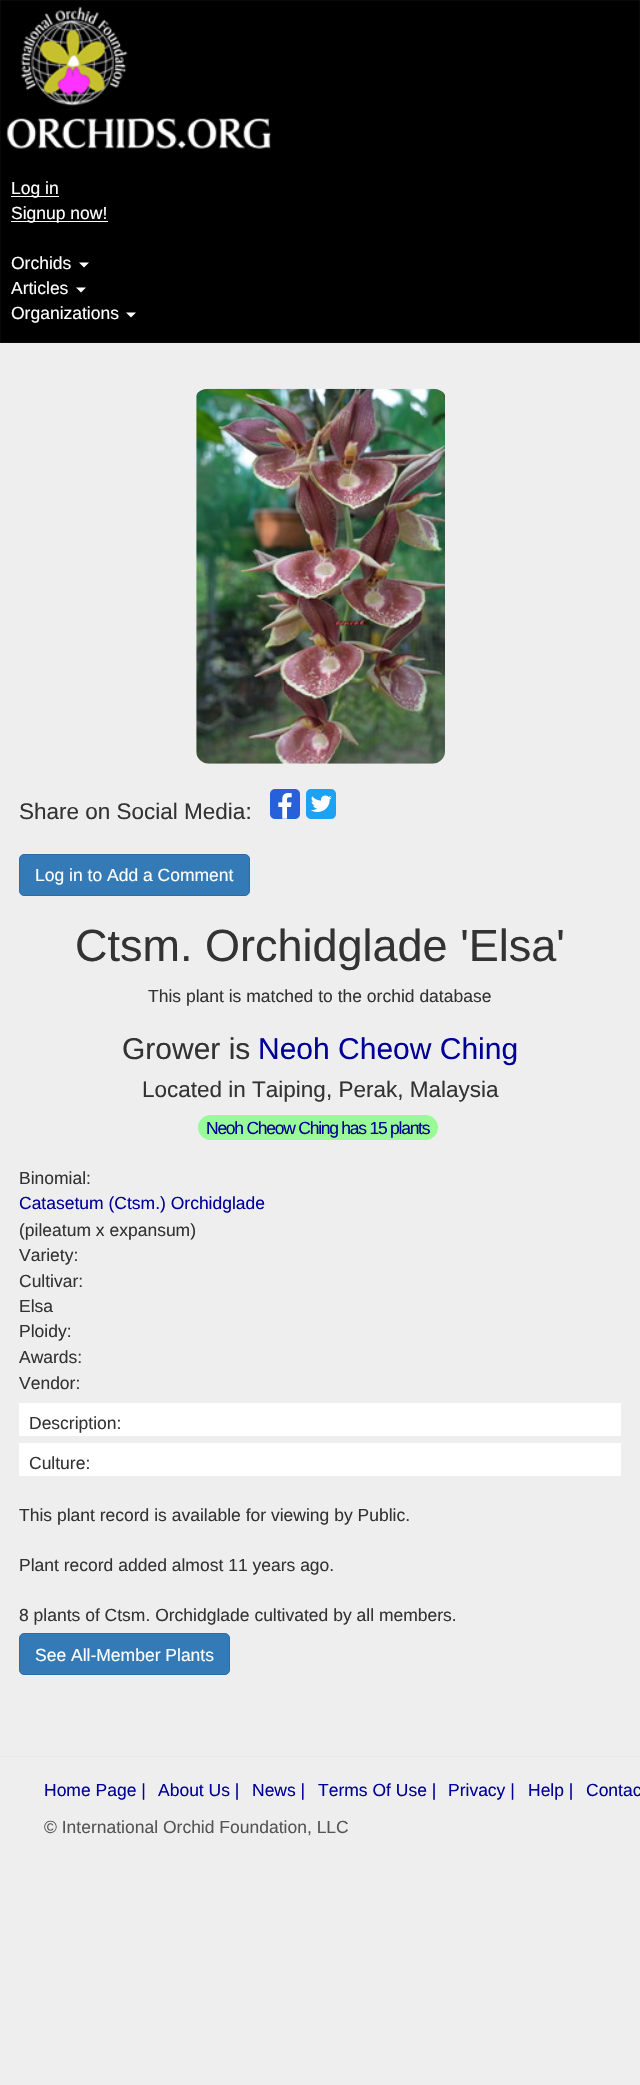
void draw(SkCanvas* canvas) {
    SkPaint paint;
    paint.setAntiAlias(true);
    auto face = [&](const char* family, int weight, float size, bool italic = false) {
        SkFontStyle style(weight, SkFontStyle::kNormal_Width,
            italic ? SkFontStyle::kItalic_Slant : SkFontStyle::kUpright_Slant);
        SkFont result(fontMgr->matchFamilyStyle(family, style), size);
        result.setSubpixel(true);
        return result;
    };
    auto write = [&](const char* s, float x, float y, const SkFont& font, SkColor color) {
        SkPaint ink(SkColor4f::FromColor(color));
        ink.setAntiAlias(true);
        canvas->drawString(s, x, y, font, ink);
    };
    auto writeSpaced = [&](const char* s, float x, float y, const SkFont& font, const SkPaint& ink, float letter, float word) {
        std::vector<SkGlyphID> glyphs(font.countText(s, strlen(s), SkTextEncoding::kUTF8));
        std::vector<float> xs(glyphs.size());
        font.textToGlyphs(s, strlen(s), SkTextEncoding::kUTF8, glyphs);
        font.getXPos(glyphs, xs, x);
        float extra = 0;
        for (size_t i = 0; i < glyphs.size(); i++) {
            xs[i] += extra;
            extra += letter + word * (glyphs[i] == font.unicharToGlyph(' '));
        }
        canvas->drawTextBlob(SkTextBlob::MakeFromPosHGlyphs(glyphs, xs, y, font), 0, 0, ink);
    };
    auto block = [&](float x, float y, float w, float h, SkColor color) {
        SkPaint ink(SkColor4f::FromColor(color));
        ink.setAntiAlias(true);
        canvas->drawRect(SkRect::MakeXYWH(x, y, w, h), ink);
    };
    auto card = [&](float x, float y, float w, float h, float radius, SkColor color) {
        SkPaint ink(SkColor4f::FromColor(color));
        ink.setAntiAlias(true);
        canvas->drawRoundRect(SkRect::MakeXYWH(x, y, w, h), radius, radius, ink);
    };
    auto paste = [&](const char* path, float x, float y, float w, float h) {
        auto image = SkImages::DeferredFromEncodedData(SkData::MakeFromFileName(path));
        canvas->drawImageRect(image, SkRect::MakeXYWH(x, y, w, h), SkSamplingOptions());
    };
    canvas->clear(SkColorSetRGB(238, 238, 238));
    paint.setColor(SK_ColorBLACK);
    canvas->drawRect(SkRect::MakeXYWH(0.5f, 0.5f, 639, 342), paint);
    paint.setStyle(SkPaint::kStroke_Style);
    paint.setStrokeWidth(1);
    paint.setColor(SkColorSetRGB(9, 9, 9));
    canvas->drawRect(SkRect::MakeXYWH(0.5f, 0.5f, 639, 342), paint);
    paste("pic1.png", 21, 6, 107, 100);
    paste("pic2.png", 6, 117, 266, 32);
    block(11, 196, 48, 1, SK_ColorWHITE);
    auto kFont1 = face("Liberation Sans", 400, 17.5f);
    write("Log in", 11, 194, kFont1, SK_ColorWHITE);
    block(11, 221, 97, 1, SK_ColorWHITE);
    write("Signup now!", 11, 219, kFont1, SK_ColorWHITE);
    write("Orchids", 11, 269, kFont1, SK_ColorWHITE);
    paint.setStyle(SkPaint::kFill_Style);
    paint.setColor(SK_ColorWHITE);
    canvas->drawPath(SkPathBuilder().moveTo(79, 262.5f).lineTo(89, 262.5f).lineTo(84, 267.5f).close().detach(), paint);
    write("Articles", 11, 294, kFont1, SK_ColorWHITE);
    canvas->drawPath(SkPathBuilder().moveTo(76, 287.5f).lineTo(86, 287.5f).lineTo(81, 292.5f).close().detach(), paint);
    write("Organizations", 11, 319, kFont1, SK_ColorWHITE);
    canvas->drawPath(SkPathBuilder().moveTo(126, 312.5f).lineTo(136, 312.5f).lineTo(131, 317.5f).close().detach(), paint);
    paste("pic3.png", 196, 388, 249, 376);
    auto kFont2 = face("Liberation Sans", 400, 22.5f);
    write("Share on Social Media:", 19, 819, kFont2, SkColorSetRGB(51, 51, 51));
    paste("pic4.png", 270, 789, 30, 30);
    paste("pic5.png", 306, 789, 30, 30);
    paint.setColor(SkColorSetRGB(51, 122, 183));
    canvas->drawRoundRect(SkRect::MakeXYWH(19.5f, 854.5f, 230, 41), 4.5f, 4.5f, paint);
    paint.setStyle(SkPaint::kStroke_Style);
    paint.setColor(SkColorSetRGB(46, 109, 164));
    canvas->drawRoundRect(SkRect::MakeXYWH(19.5f, 854.5f, 230, 41), 4.5f, 4.5f, paint);
    write("Log in to Add a Comment", 35, 881, kFont1, SK_ColorWHITE);
    auto kFont3 = face("Liberation Sans", 400, 45);
    write("Ctsm. Orchidglade 'Elsa'", 75, 961, kFont3, SkColorSetRGB(51, 51, 51));
    write("This plant is matched to the orchid database", 148, 1002, kFont1, SkColorSetRGB(51, 51, 51));
    auto kFont4 = face("Liberation Sans", 400, 30);
    write("Grower is", 122, 1059, kFont4, SkColorSetRGB(51, 51, 51));
    write("Neoh Cheow Ching", 258, 1059, kFont4, SkColorSetRGB(0, 0, 153));
    write("Located in Taiping, Perak, Malaysia", 142, 1097, kFont2, SkColorSetRGB(51, 51, 51));
    card(198, 1115, 240, 25, 12.5f, SkColorSetRGB(152, 251, 152));
    paint.setStyle(SkPaint::kFill_Style);
    paint.setColor(SkColorSetRGB(0, 0, 153));
    writeSpaced("Neoh Cheow Ching has 15 plants", 206, 1134, kFont1, paint, -1.25f, 0);
    write("Binomial:", 19, 1184, kFont1, SkColorSetRGB(51, 51, 51));
    write("Catasetum (Ctsm.) Orchidglade", 19, 1209, kFont1, SkColorSetRGB(0, 0, 153));
    write("(pileatum x expansum)", 19, 1236, kFont1, SkColorSetRGB(51, 51, 51));
    write("Variety:", 19, 1261, kFont1, SkColorSetRGB(51, 51, 51));
    write("Cultivar:", 19, 1287, kFont1, SkColorSetRGB(51, 51, 51));
    write("Elsa", 19, 1312, kFont1, SkColorSetRGB(51, 51, 51));
    write("Ploidy:", 19, 1337, kFont1, SkColorSetRGB(51, 51, 51));
    write("Awards:", 19, 1363, kFont1, SkColorSetRGB(51, 51, 51));
    write("Vendor:", 19, 1389, kFont1, SkColorSetRGB(51, 51, 51));
    block(19, 1403, 602, 33, SK_ColorWHITE);
    write("Description:", 29, 1429, kFont1, SkColorSetRGB(51, 51, 51));
    block(19, 1443, 602, 33, SK_ColorWHITE);
    write("Culture:", 29, 1469, kFont1, SkColorSetRGB(51, 51, 51));
    write("This plant record is available for viewing by Public.", 19, 1521, kFont1, SkColorSetRGB(51, 51, 51));
    write("Plant record added almost 11 years ago.", 19, 1571, kFont1, SkColorSetRGB(51, 51, 51));
    write("8 plants of Ctsm. Orchidglade cultivated by all members.", 19, 1621, kFont1, SkColorSetRGB(51, 51, 51));
    paint.setColor(SkColorSetRGB(51, 122, 183));
    canvas->drawRoundRect(SkRect::MakeXYWH(19.5f, 1633.5f, 210, 41), 4.5f, 4.5f, paint);
    paint.setStyle(SkPaint::kStroke_Style);
    paint.setColor(SkColorSetRGB(46, 109, 164));
    canvas->drawRoundRect(SkRect::MakeXYWH(19.5f, 1633.5f, 210, 41), 4.5f, 4.5f, paint);
    write("See All-Member Plants", 35, 1661, kFont1, SK_ColorWHITE);
    block(0, 1756, 640, 1, SkColorSetRGB(234, 234, 234));
    write("Home Page |", 44, 1796, kFont1, SkColorSetRGB(0, 0, 153));
    write("About Us |", 158, 1796, kFont1, SkColorSetRGB(0, 0, 153));
    write("News |", 252, 1796, kFont1, SkColorSetRGB(0, 0, 153));
    write("Terms Of Use |", 318, 1796, kFont1, SkColorSetRGB(0, 0, 153));
    write("Privacy |", 448, 1796, kFont1, SkColorSetRGB(0, 0, 153));
    write("Help |", 528, 1796, kFont1, SkColorSetRGB(0, 0, 153));
    write("Contac", 586, 1796, kFont1, SkColorSetRGB(0, 0, 153));
    write("© International Orchid Foundation, LLC", 44, 1833, kFont1, SkColorSetRGB(85, 85, 85));
}
